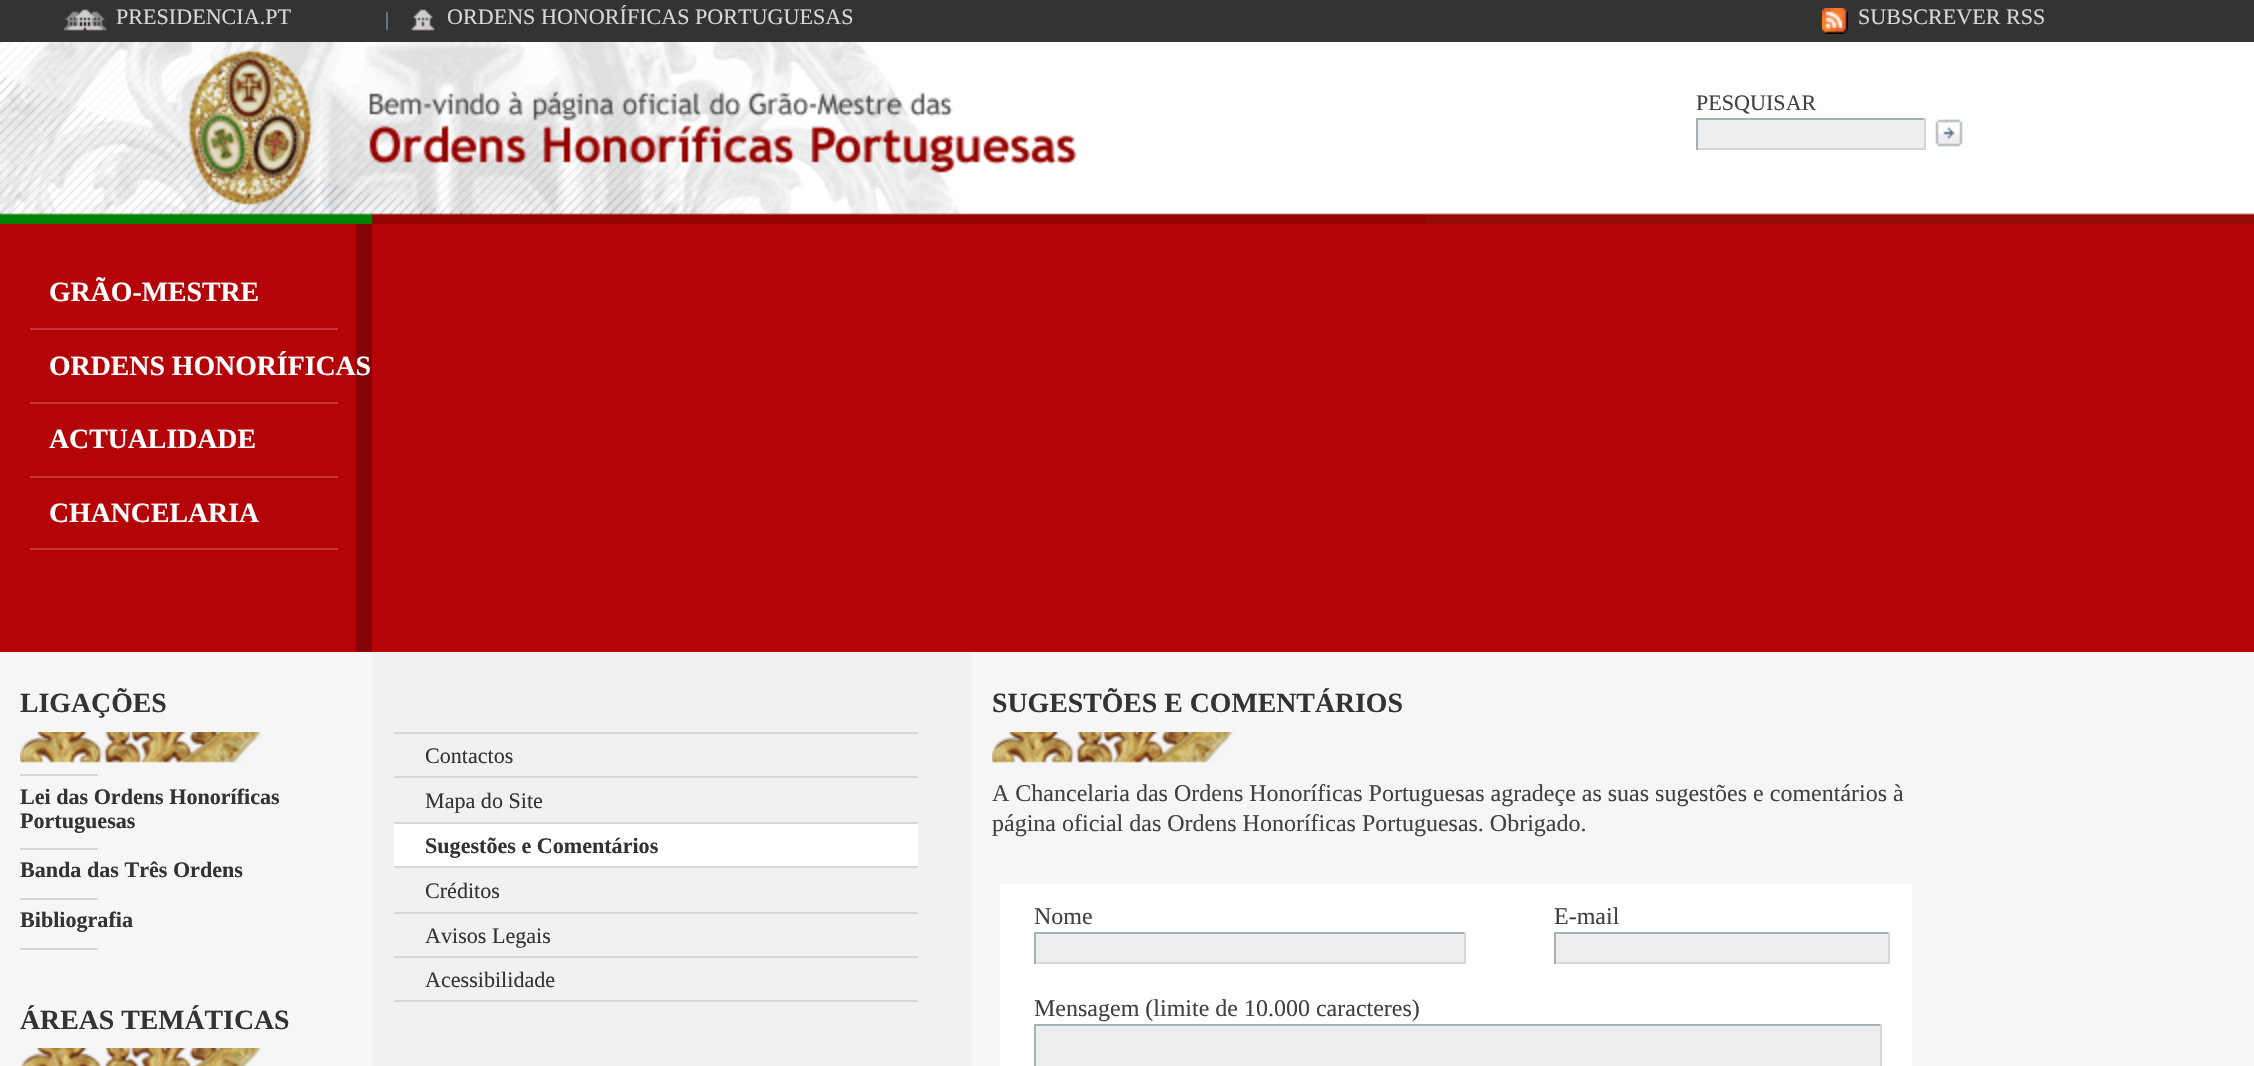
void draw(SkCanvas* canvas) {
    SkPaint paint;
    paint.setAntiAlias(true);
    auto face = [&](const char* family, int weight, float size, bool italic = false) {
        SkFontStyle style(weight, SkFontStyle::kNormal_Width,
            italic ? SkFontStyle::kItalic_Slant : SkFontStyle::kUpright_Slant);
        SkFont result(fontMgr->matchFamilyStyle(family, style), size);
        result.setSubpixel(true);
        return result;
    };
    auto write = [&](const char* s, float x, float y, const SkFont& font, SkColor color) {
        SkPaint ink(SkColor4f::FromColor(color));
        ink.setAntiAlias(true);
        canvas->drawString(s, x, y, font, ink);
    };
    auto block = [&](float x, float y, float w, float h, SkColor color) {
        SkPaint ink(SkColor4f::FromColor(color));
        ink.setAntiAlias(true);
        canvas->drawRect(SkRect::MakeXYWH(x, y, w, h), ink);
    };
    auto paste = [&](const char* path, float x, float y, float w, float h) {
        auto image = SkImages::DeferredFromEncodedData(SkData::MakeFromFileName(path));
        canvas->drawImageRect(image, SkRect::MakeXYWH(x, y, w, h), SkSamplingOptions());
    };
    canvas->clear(SkColorSetRGB(51, 51, 51));
    paste("pic1.png", 64, 9, 42, 22);
    auto kFont1 = face("Liberation Serif", 400, 22.1f);
    write("PRESIDENCIA.PT", 116, 24, kFont1, SkColorSetRGB(216, 216, 216));
    paste("pic2.png", 386, 11, 2, 20);
    paste("pic3.png", 411, 9, 24, 22);
    write("ORDENS HONORÍFICAS PORTUGUESAS", 447, 24, kFont1, SkColorSetRGB(216, 216, 216));
    paste("pic4.png", 1822, 8, 26, 26);
    write("SUBSCREVER RSS", 1858, 24, kFont1, SkColorSetRGB(216, 216, 216));
    paste("pic5.png", 1426, 42, 828, 182);
    paste("pic6.png", 0, 42, 1426, 182);
    write("PESQUISAR", 1696, 110, kFont1, SkColorSetRGB(65, 65, 65));
    block(1698, 120, 226, 28, SkColorSetRGB(238, 238, 238));
    block(1696, 118, 230, 2, SkColorSetRGB(168, 177, 182));
    block(1924, 118, 2, 32, SkColorSetRGB(212, 216, 218));
    block(1696, 148, 230, 2, SkColorSetRGB(212, 216, 218));
    block(1696, 118, 2, 32, SkColorSetRGB(168, 177, 182));
    paste("pic7.png", 1935, 119, 28, 28);
    block(0, 224, 2254, 428, SkColorSetRGB(180, 4, 8));
    paste("pic8.png", 355, 224, 17, 428);
    block(30, 328, 308, 2, SkColorSetRGB(195, 54, 57));
    auto kFont2 = face("Liberation Serif", 700, 27.8f);
    write("GRÃO-MESTRE", 49, 301, kFont2, SK_ColorWHITE);
    block(30, 402, 308, 2, SkColorSetRGB(195, 54, 57));
    write("ORDENS HONORÍFICAS", 49, 375, kFont2, SK_ColorWHITE);
    block(30, 476, 308, 2, SkColorSetRGB(195, 54, 57));
    write("ACTUALIDADE", 49, 448, kFont2, SK_ColorWHITE);
    block(30, 548, 308, 2, SkColorSetRGB(195, 54, 57));
    write("CHANCELARIA", 49, 522, kFont2, SK_ColorWHITE);
    block(0, 652, 2254, 414, SkColorSetRGB(246, 246, 246));
    block(373, 652, 598, 414, SkColorSetRGB(241, 241, 241));
    write("LIGAÇÕES", 20, 712, kFont2, SkColorSetRGB(51, 51, 51));
    paste("pic9.png", 20, 732, 241, 31);
    block(20, 774, 78, 2, SkColorSetRGB(212, 216, 218));
    auto kFont3 = face("Liberation Serif", 700, 22.1f);
    write("Lei das Ordens Honoríficas", 20, 804, kFont3, SkColorSetRGB(51, 51, 51));
    write("Portuguesas", 20, 828, kFont3, SkColorSetRGB(51, 51, 51));
    block(20, 848, 78, 2, SkColorSetRGB(212, 216, 218));
    write("Banda das Três Ordens", 20, 877, kFont3, SkColorSetRGB(51, 51, 51));
    block(20, 898, 78, 2, SkColorSetRGB(212, 216, 218));
    write("Bibliografia", 20, 927, kFont3, SkColorSetRGB(51, 51, 51));
    block(20, 948, 78, 2, SkColorSetRGB(212, 216, 218));
    write("ÁREAS TEMÁTICAS", 20, 1029, kFont2, SkColorSetRGB(51, 51, 51));
    paste("pic10.png", 20, 1048, 241, 18);
    block(394, 732, 524, 2, SkColorSetRGB(212, 216, 218));
    write("Contactos", 425, 763, kFont1, SkColorSetRGB(51, 51, 51));
    block(394, 776, 524, 2, SkColorSetRGB(212, 216, 218));
    write("Mapa do Site", 425, 808, kFont1, SkColorSetRGB(51, 51, 51));
    block(394, 822, 524, 2, SkColorSetRGB(212, 216, 218));
    block(394, 824, 524, 42, SK_ColorWHITE);
    write("Sugestões e Comentários", 425, 853, kFont3, SkColorSetRGB(51, 51, 51));
    block(394, 866, 524, 2, SkColorSetRGB(212, 216, 218));
    write("Créditos", 425, 898, kFont1, SkColorSetRGB(51, 51, 51));
    block(394, 912, 524, 2, SkColorSetRGB(212, 216, 218));
    write("Avisos Legais", 425, 943, kFont1, SkColorSetRGB(51, 51, 51));
    block(394, 956, 524, 2, SkColorSetRGB(212, 216, 218));
    write("Acessibilidade", 425, 987, kFont1, SkColorSetRGB(51, 51, 51));
    block(394, 1000, 524, 2, SkColorSetRGB(212, 216, 218));
    write("SUGESTÕES E COMENTÁRIOS", 992, 712, kFont2, SkColorSetRGB(51, 51, 51));
    paste("pic11.png", 992, 732, 241, 31);
    auto kFont4 = face("Liberation Serif", 400, 24);
    write("A Chancelaria das Ordens Honoríficas Portuguesas agradeçe as suas sugestões e comentários à", 992, 801, kFont4, SkColorSetRGB(65, 65, 65));
    write("página oficial das Ordens Honoríficas Portuguesas. Obrigado.", 992, 831, kFont4, SkColorSetRGB(65, 65, 65));
    block(1000, 884, 912, 182, SK_ColorWHITE);
    write("Nome", 1034, 924, kFont4, SkColorSetRGB(65, 65, 65));
    block(1036, 934, 428, 28, SkColorSetRGB(238, 238, 238));
    block(1034, 932, 432, 2, SkColorSetRGB(168, 177, 182));
    block(1464, 932, 2, 32, SkColorSetRGB(212, 216, 218));
    block(1034, 962, 432, 2, SkColorSetRGB(212, 216, 218));
    block(1034, 932, 2, 32, SkColorSetRGB(168, 177, 182));
    write("E-mail", 1554, 924, kFont4, SkColorSetRGB(65, 65, 65));
    block(1556, 934, 332, 28, SkColorSetRGB(238, 238, 238));
    block(1554, 932, 336, 2, SkColorSetRGB(168, 177, 182));
    block(1888, 932, 2, 32, SkColorSetRGB(212, 216, 218));
    block(1554, 962, 336, 2, SkColorSetRGB(212, 216, 218));
    block(1554, 932, 2, 32, SkColorSetRGB(168, 177, 182));
    write("Mensagem (limite de 10.000 caracteres)", 1034, 1016, kFont4, SkColorSetRGB(65, 65, 65));
    block(1036, 1026, 844, 40, SkColorSetRGB(238, 238, 238));
    block(1034, 1024, 848, 2, SkColorSetRGB(168, 177, 182));
    block(1880, 1024, 2, 42, SkColorSetRGB(212, 216, 218));
    block(1034, 1024, 2, 42, SkColorSetRGB(168, 177, 182));
}
